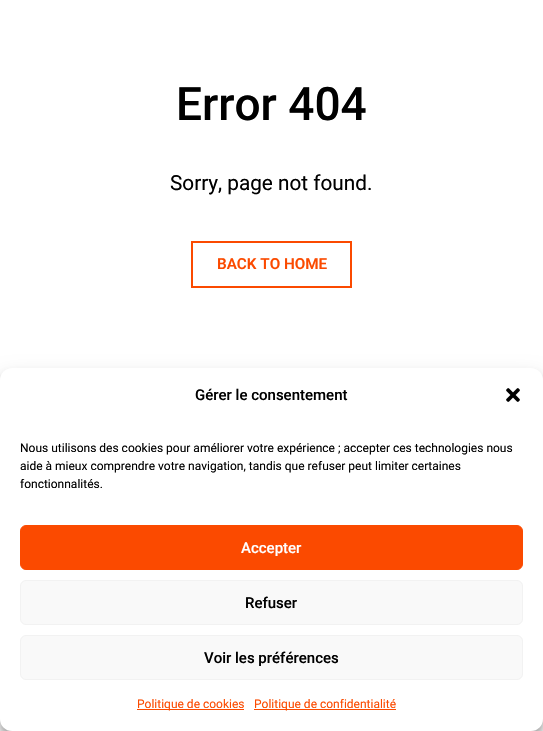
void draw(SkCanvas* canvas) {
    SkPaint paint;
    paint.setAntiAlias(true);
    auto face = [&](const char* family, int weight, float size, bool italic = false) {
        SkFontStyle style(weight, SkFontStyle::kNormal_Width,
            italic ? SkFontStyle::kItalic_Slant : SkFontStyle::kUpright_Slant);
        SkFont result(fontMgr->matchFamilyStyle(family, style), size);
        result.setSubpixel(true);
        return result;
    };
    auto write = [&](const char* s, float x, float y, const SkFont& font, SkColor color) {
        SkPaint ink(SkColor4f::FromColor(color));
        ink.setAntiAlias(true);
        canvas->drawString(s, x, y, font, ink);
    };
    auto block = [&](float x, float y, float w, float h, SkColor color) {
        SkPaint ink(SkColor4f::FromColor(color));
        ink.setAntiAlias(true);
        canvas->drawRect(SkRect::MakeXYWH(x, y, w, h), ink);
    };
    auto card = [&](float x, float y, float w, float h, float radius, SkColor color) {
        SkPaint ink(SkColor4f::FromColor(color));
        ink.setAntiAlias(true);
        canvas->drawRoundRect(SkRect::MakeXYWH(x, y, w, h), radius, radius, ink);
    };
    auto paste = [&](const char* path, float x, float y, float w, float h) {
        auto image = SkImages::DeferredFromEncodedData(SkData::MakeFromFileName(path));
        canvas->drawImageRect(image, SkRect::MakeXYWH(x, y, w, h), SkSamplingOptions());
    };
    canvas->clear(SK_ColorWHITE);
    auto kFont1 = face("Roboto", 500, 46);
    write("Error 404", 176, 120, kFont1, SK_ColorBLACK);
    auto kFont2 = face("Roboto", 400, 20.75f);
    write("Sorry, page not found.", 170, 190, kFont2, SK_ColorBLACK);
    paint.setStyle(SkPaint::kStroke_Style);
    paint.setStrokeWidth(2);
    paint.setColor(SkColorSetRGB(251, 74, 0));
    canvas->drawRect(SkRect::MakeXYWH(192, 242, 159, 45), paint);
    auto kFont3 = face("Roboto", 600, 15.25f);
    write("BACK TO HOME", 217, 269, kFont3, SkColorSetRGB(251, 74, 0));
    paint.setStyle(SkPaint::kFill_Style);
    paint.setColor(SkColorSetARGB(59, 0, 0, 0));
    paint.setMaskFilter(SkMaskFilter::MakeBlur(kNormal_SkBlurStyle, 3));
    canvas->drawRoundRect(SkRect::MakeXYWH(0, 374, 543, 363), 12, 12, paint);
    paint.setMaskFilter(nullptr);
    paint.setColor(SkColorSetARGB(48, 0, 0, 0));
    paint.setMaskFilter(SkMaskFilter::MakeBlur(kNormal_SkBlurStyle, 10));
    canvas->drawRoundRect(SkRect::MakeXYWH(0, 378, 543, 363), 12, 12, paint);
    paint.setMaskFilter(nullptr);
    card(0, 368, 543, 363, 12, SK_ColorWHITE);
    auto kFont4 = face("Roboto", 500, 15);
    write("Gérer le consentement", 195, 400, kFont4, SK_ColorBLACK);
    paste("pic1.png", 506, 388, 14, 14);
    auto kFont5 = face("Roboto", 400, 12);
    write("Nous utilisons des cookies pour améliorer votre expérience ; accepter ces technologies nous", 20, 452, kFont5, SK_ColorBLACK);
    write("aide à mieux comprendre votre navigation, tandis que refuser peut limiter certaines", 20, 470, kFont5, SK_ColorBLACK);
    write("fonctionnalités.", 20, 488, kFont5, SK_ColorBLACK);
    paint.setColor(SkColorSetRGB(251, 74, 0));
    canvas->drawRoundRect(SkRect::MakeXYWH(20.5f, 525.5f, 502, 44), 5.5f, 5.5f, paint);
    paint.setStyle(SkPaint::kStroke_Style);
    paint.setStrokeWidth(1);
    canvas->drawRoundRect(SkRect::MakeXYWH(20.5f, 525.5f, 502, 44), 5.5f, 5.5f, paint);
    write("Accepter", 241, 553, kFont4, SK_ColorWHITE);
    paint.setStyle(SkPaint::kFill_Style);
    paint.setColor(SkColorSetRGB(249, 249, 249));
    canvas->drawRoundRect(SkRect::MakeXYWH(20.5f, 580.5f, 502, 44), 5.5f, 5.5f, paint);
    paint.setStyle(SkPaint::kStroke_Style);
    paint.setColor(SkColorSetRGB(242, 242, 242));
    canvas->drawRoundRect(SkRect::MakeXYWH(20.5f, 580.5f, 502, 44), 5.5f, 5.5f, paint);
    write("Refuser", 245, 608, kFont4, SK_ColorBLACK);
    paint.setStyle(SkPaint::kFill_Style);
    paint.setColor(SkColorSetRGB(249, 249, 249));
    canvas->drawRoundRect(SkRect::MakeXYWH(20.5f, 635.5f, 502, 44), 5.5f, 5.5f, paint);
    paint.setStyle(SkPaint::kStroke_Style);
    paint.setColor(SkColorSetRGB(242, 242, 242));
    canvas->drawRoundRect(SkRect::MakeXYWH(20.5f, 635.5f, 502, 44), 5.5f, 5.5f, paint);
    write("Voir les préférences", 204, 663, kFont4, SK_ColorBLACK);
    block(137, 709, 107, 1, SkColorSetRGB(251, 74, 0));
    write("Politique de cookies", 137, 708, kFont5, SkColorSetRGB(251, 74, 0));
    block(254, 709, 142, 1, SkColorSetRGB(251, 74, 0));
    write("Politique de confidentialité", 254, 708, kFont5, SkColorSetRGB(251, 74, 0));
}
